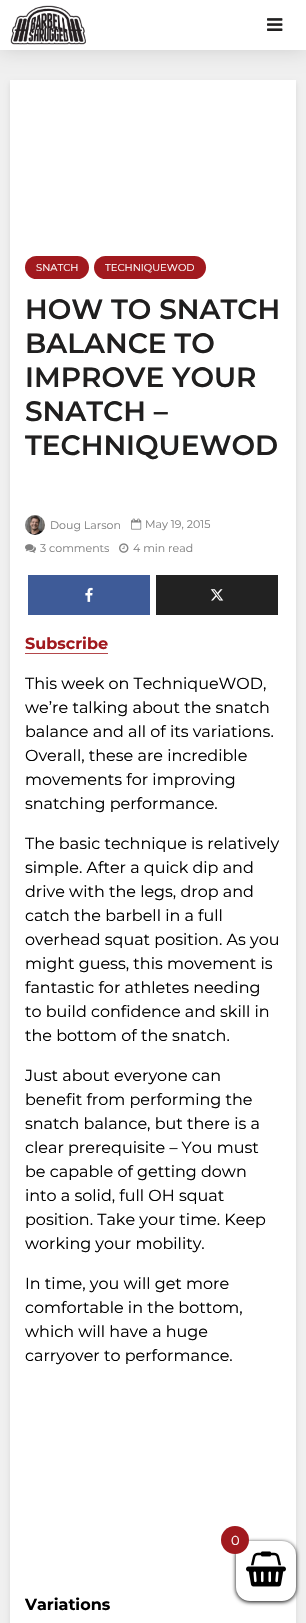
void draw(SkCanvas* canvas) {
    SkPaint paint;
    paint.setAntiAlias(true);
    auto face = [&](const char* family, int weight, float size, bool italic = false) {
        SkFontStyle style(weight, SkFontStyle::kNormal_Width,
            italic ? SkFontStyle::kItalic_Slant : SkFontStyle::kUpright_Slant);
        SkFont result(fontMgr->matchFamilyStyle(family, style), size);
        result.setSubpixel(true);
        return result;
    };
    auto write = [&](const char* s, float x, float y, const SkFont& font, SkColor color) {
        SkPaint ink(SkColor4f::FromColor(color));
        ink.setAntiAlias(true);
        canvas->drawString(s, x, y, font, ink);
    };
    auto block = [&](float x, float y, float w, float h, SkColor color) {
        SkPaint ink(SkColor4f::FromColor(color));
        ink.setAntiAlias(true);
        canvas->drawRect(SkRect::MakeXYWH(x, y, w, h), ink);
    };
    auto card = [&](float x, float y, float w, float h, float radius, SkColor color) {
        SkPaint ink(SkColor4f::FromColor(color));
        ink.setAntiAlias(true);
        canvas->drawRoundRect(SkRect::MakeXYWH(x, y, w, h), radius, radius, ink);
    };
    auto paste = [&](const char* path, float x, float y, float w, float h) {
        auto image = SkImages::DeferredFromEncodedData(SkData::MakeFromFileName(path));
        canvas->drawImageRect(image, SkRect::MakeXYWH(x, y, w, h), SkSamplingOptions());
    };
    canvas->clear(SkColorSetRGB(240, 240, 240));
    paint.setColor(SkColorSetARGB(26, 0, 1, 1));
    paint.setMaskFilter(SkMaskFilter::MakeBlur(kNormal_SkBlurStyle, 2.5f));
    canvas->drawRect(SkRect::MakeXYWH(10, 83, 286, 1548), paint);
    paint.setMaskFilter(nullptr);
    block(10, 80, 286, 1543, SK_ColorWHITE);
    paint.setColor(SkColorSetARGB(38, 0, 0, 0));
    paint.setMaskFilter(SkMaskFilter::MakeBlur(kNormal_SkBlurStyle, 10));
    canvas->drawRect(SkRect::MakeXYWH(0, 0, 306, 50), paint);
    paint.setMaskFilter(nullptr);
    block(0, 0, 306, 50, SK_ColorWHITE);
    paste("pic1.png", 10, 5, 76, 40);
    paste("pic2.png", 267, 18, 16, 13);
    card(25, 256, 64, 23, 11.5f, SkColorSetRGB(161, 25, 30));
    auto kFont1 = face("Montserrat", 400, 10);
    write("SNATCH", 36, 271, kFont1, SK_ColorWHITE);
    card(94, 256, 112, 23, 11.5f, SkColorSetRGB(161, 25, 30));
    write("TECHNIQUEWOD", 105, 271, kFont1, SK_ColorWHITE);
    auto kFont2 = face("Montserrat", 600, 28);
    write("HOW TO SNATCH", 25, 319, kFont2, SkColorSetRGB(32, 31, 31));
    write("BALANCE TO", 25, 353, kFont2, SkColorSetRGB(32, 31, 31));
    write("IMPROVE YOUR", 25, 387, kFont2, SkColorSetRGB(32, 31, 31));
    write("SNATCH –", 25, 421, kFont2, SkColorSetRGB(32, 31, 31));
    write("TECHNIQUEWOD", 25, 455, kFont2, SkColorSetRGB(32, 31, 31));
    paste("pic3.png", 25, 515, 20, 20);
    auto kFont3 = face("Montserrat", 400, 11);
    write("Doug Larson", 50, 529, kFont3, SkColorSetRGB(129, 129, 129));
    paste("pic4.png", 131, 518, 11, 12);
    write("May 19, 2015", 145, 528, kFont3, SkColorSetRGB(129, 129, 129));
    paste("pic5.png", 25, 544, 11, 9);
    write("3 comments", 40, 552, kFont3, SkColorSetRGB(129, 129, 129));
    paste("pic6.png", 119, 543, 10, 10);
    write("4 min read", 133, 552, kFont3, SkColorSetRGB(129, 129, 129));
    block(28, 575, 122, 40, SkColorSetRGB(62, 91, 152));
    paste("pic7.png", 85, 587, 8, 15);
    block(156, 575, 122, 40, SkColorSetRGB(34, 34, 34));
    paste("pic8.png", 210, 589, 14, 12);
    auto kFont4 = face("Montserrat", 700, 16);
    write("Subscribe", 25, 649, kFont4, SkColorSetRGB(161, 25, 30));
    block(25, 653, 83, 1, SkColorSetRGB(180, 71, 75));
    auto kFont5 = face("Montserrat", 400, 16);
    write("This week on TechniqueWOD,", 25, 689, kFont5, SK_ColorBLACK);
    write("we’re talking about the snatch", 25, 713, kFont5, SK_ColorBLACK);
    write("balance and all of its variations.", 25, 737, kFont5, SK_ColorBLACK);
    write("Overall, these are incredible", 25, 761, kFont5, SK_ColorBLACK);
    write("movements for improving", 25, 785, kFont5, SK_ColorBLACK);
    write("snatching performance.", 25, 809, kFont5, SK_ColorBLACK);
    write("The basic technique is relatively", 25, 849, kFont5, SK_ColorBLACK);
    write("simple. After a quick dip and", 25, 873, kFont5, SK_ColorBLACK);
    write("drive with the legs, drop and", 25, 897, kFont5, SK_ColorBLACK);
    write("catch the barbell in a full", 25, 921, kFont5, SK_ColorBLACK);
    write("overhead squat position. As you", 25, 945, kFont5, SK_ColorBLACK);
    write("might guess, this movement is", 25, 969, kFont5, SK_ColorBLACK);
    write("fantastic for athletes needing", 25, 993, kFont5, SK_ColorBLACK);
    write("to build confidence and skill in", 25, 1017, kFont5, SK_ColorBLACK);
    write("the bottom of the snatch.", 25, 1041, kFont5, SK_ColorBLACK);
    write("Just about everyone can", 25, 1081, kFont5, SK_ColorBLACK);
    write("benefit from performing the", 25, 1105, kFont5, SK_ColorBLACK);
    write("snatch balance, but there is a", 25, 1129, kFont5, SK_ColorBLACK);
    write("clear prerequisite – You must", 25, 1153, kFont5, SK_ColorBLACK);
    write("be capable of getting down", 25, 1177, kFont5, SK_ColorBLACK);
    write("into a solid, full OH squat", 25, 1201, kFont5, SK_ColorBLACK);
    write("position. Take your time. Keep", 25, 1225, kFont5, SK_ColorBLACK);
    write("working your mobility.", 25, 1249, kFont5, SK_ColorBLACK);
    write("In time, you will get more", 25, 1289, kFont5, SK_ColorBLACK);
    write("comfortable in the bottom,", 25, 1313, kFont5, SK_ColorBLACK);
    write("which will have a huge", 25, 1337, kFont5, SK_ColorBLACK);
    write("carryover to performance.", 25, 1361, kFont5, SK_ColorBLACK);
    write("Variations", 25, 1610, kFont4, SK_ColorBLACK);
    paint.setColor(SK_ColorBLACK);
    paint.setMaskFilter(SkMaskFilter::MakeBlur(kNormal_SkBlurStyle, 2));
    canvas->drawRoundRect(SkRect::MakeXYWH(236, 1542, 60, 60), 14, 14, paint);
    paint.setMaskFilter(nullptr);
    card(236, 1541, 60, 60, 14, SK_ColorWHITE);
    paste("pic9.png", 246, 1551, 40, 36);
    paint.setColor(SkColorSetRGB(161, 25, 30));
    canvas->drawCircle(235, 1540, 14, paint);
    auto kFont6 = face("Montserrat", 400, 13);
    write("0", 231, 1545, kFont6, SK_ColorWHITE);
}
